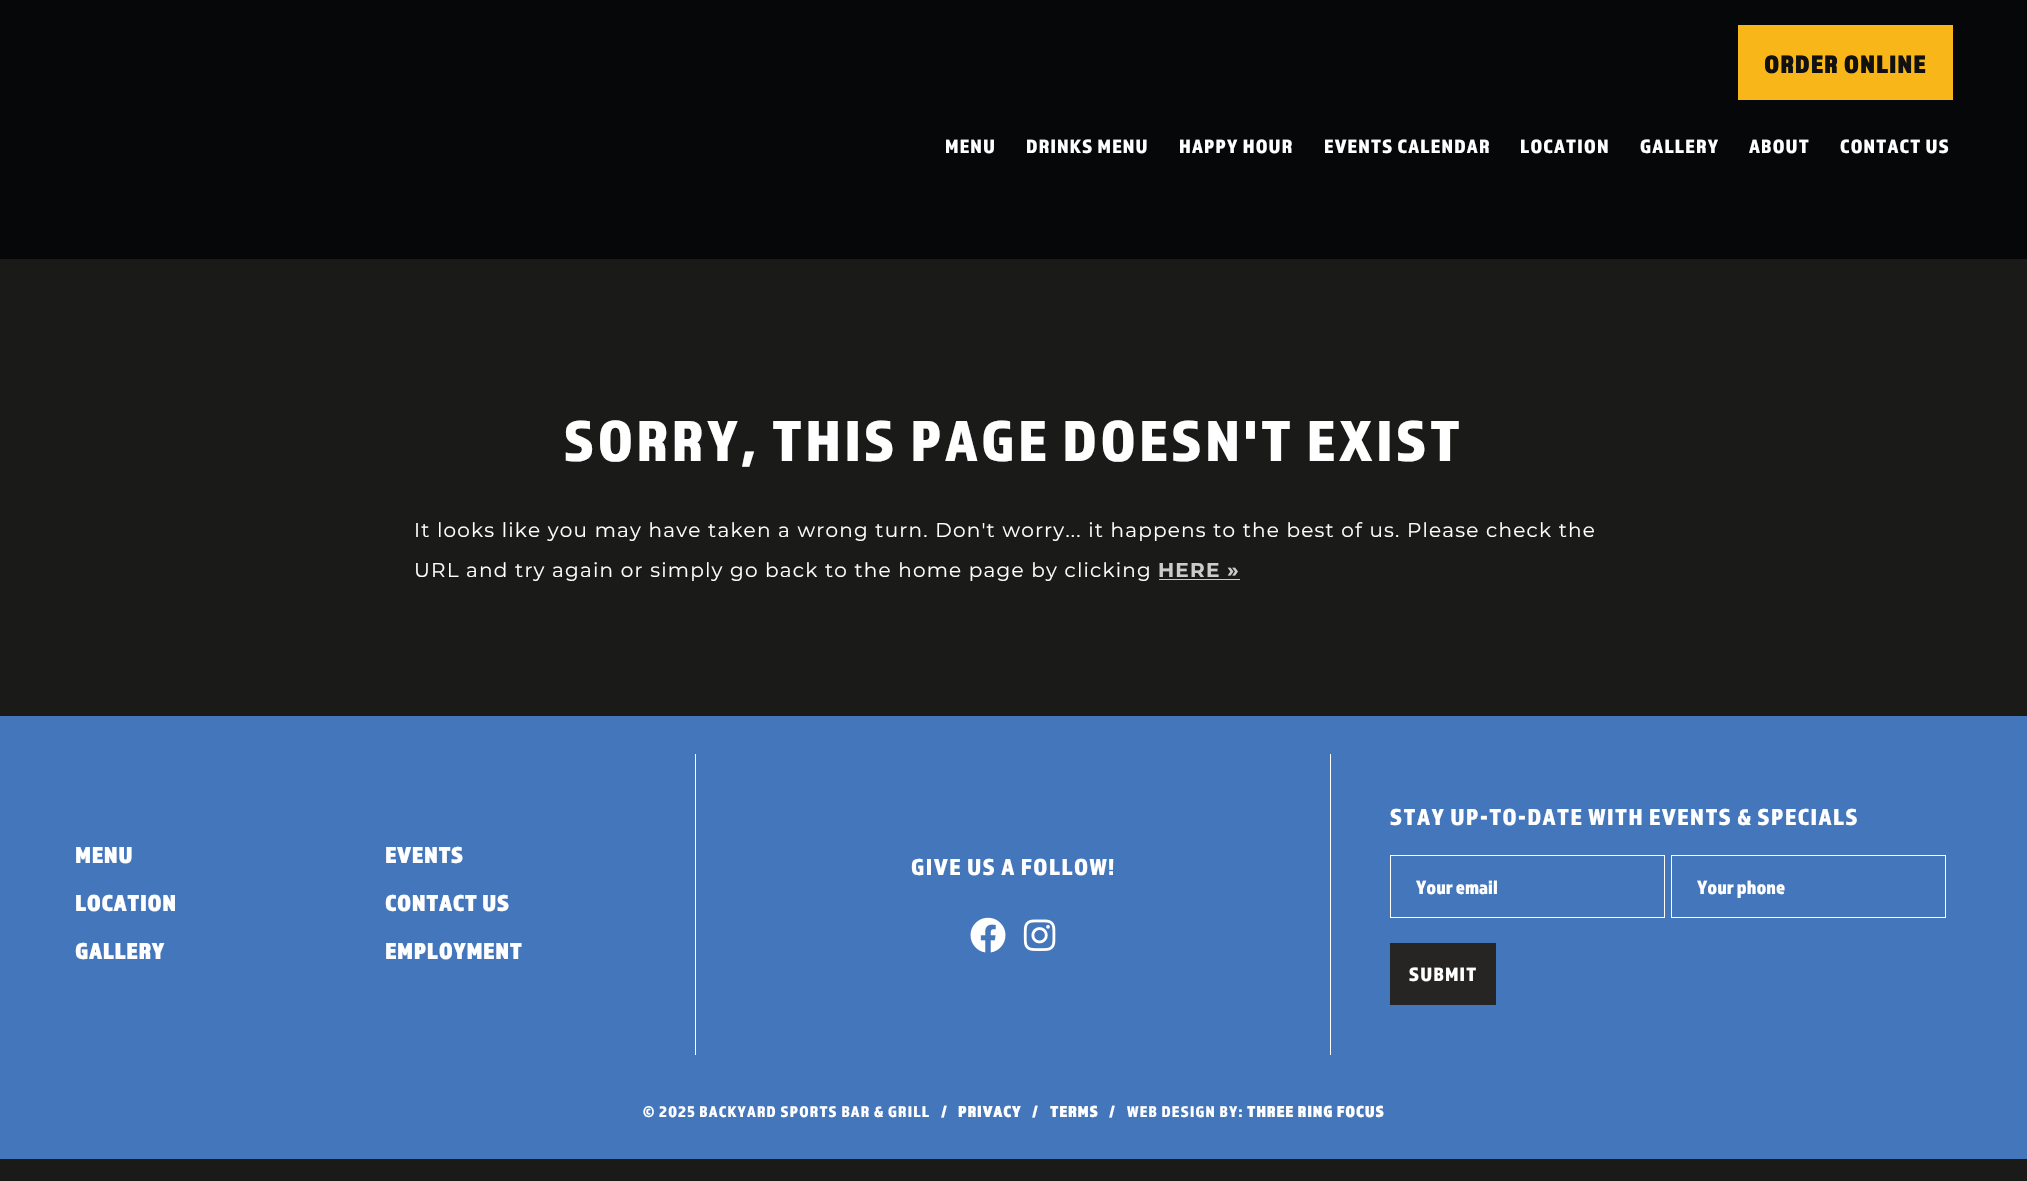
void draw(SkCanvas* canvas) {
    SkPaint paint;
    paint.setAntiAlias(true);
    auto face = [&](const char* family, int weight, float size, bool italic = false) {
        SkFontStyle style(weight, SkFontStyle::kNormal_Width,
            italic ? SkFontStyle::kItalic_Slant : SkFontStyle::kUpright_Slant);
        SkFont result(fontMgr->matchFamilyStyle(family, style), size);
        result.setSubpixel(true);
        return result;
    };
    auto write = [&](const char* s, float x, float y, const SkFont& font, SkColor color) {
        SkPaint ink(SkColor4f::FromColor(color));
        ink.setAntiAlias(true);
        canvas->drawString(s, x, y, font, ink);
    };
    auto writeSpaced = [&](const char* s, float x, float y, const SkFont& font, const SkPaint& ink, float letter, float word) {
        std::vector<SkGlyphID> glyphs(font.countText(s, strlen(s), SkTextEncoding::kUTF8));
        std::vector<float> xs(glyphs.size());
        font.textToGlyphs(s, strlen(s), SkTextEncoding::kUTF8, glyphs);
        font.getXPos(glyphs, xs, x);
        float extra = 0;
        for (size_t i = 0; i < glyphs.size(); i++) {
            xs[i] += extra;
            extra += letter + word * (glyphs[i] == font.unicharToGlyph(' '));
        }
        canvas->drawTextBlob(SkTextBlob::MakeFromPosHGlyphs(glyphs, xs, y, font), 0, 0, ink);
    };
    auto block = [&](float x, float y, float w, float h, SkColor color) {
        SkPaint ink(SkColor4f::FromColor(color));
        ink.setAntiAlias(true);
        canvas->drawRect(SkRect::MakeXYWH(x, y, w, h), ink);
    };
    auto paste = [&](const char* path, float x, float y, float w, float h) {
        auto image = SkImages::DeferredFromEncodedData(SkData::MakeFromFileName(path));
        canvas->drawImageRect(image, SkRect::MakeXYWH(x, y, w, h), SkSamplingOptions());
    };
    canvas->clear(SkColorSetRGB(26, 26, 25));
    block(0, 0, 2027, 259, SkColorSetRGB(6, 7, 9));
    block(1738, 25, 215, 75, SkColorSetRGB(249, 182, 24));
    auto kFont1 = face("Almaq", 700, 25);
    paint.setColor(SkColorSetRGB(17, 17, 17));
    writeSpaced("ORDER ONLINE", 1764, 73, kFont1, paint, 1.5f, 0);
    auto kFont2 = face("Almaq", 400, 20);
    paint.setColor(SK_ColorWHITE);
    writeSpaced("MENU", 945, 153, kFont2, paint, 1.2f, 0);
    writeSpaced("DRINKS MENU", 1026, 153, kFont2, paint, 1.2f, 0);
    writeSpaced("HAPPY HOUR", 1179, 153, kFont2, paint, 1.2f, 0);
    writeSpaced("EVENTS CALENDAR", 1324, 153, kFont2, paint, 1.2f, 0);
    writeSpaced("LOCATION", 1520, 153, kFont2, paint, 1.2f, 0);
    writeSpaced("GALLERY", 1640, 153, kFont2, paint, 1.2f, 0);
    writeSpaced("ABOUT", 1749, 153, kFont2, paint, 1.2f, 0);
    writeSpaced("CONTACT US", 1840, 153, kFont2, paint, 1.2f, 0);
    auto kFont3 = face("Almaq", 400, 60);
    writeSpaced("SORRY, THIS PAGE DOESN'T EXIST", 564, 461, kFont3, paint, 3.6f, 0);
    auto kFont4 = face("Montserrat", 400, 20);
    writeSpaced("It looks like you may have taken a wrong turn. Don't worry... it happens to the best of us. Please check the", 414, 537, kFont4, paint, 1.2f, 0);
    writeSpaced("URL and try again or simply go back to the home page by clicking", 414, 577, kFont4, paint, 1.2f, 0);
    auto kFont5 = face("Montserrat", 700, 20);
    paint.setColor(SkColorSetRGB(204, 204, 204));
    writeSpaced("HERE »", 1158, 577, kFont5, paint, 1.2f, 0);
    block(1159, 579, 81, 1, SkColorSetRGB(204, 204, 204));
    block(0, 716, 2027, 443, SkColorSetRGB(68, 118, 187));
    block(695, 754, 1, 301, SK_ColorWHITE);
    auto kFont6 = face("Almaq", 700, 23);
    paint.setColor(SK_ColorWHITE);
    writeSpaced("MENU", 75, 863, kFont6, paint, 1.2f, 0);
    writeSpaced("LOCATION", 75, 911, kFont6, paint, 1.2f, 0);
    writeSpaced("GALLERY", 75, 959, kFont6, paint, 1.2f, 0);
    writeSpaced("EVENTS", 385, 863, kFont6, paint, 1.2f, 0);
    writeSpaced("CONTACT US", 385, 911, kFont6, paint, 1.2f, 0);
    writeSpaced("EMPLOYMENT", 385, 959, kFont6, paint, 1.2f, 0);
    block(1330, 754, 1, 301, SK_ColorWHITE);
    auto kFont7 = face("Almaq", 400, 24);
    writeSpaced("GIVE US A FOLLOW!", 911, 875, kFont7, paint, 1.45f, 0);
    paste("pic1.png", 970, 917, 36, 36);
    paste("pic2.png", 1023, 919, 33, 32);
    writeSpaced("STAY UP-TO-DATE WITH EVENTS & SPECIALS", 1390, 825, kFont7, paint, 1.45f, 0);
    paint.setStyle(SkPaint::kStroke_Style);
    paint.setStrokeWidth(1);
    canvas->drawRect(SkRect::MakeXYWH(1390.5f, 855.5f, 274, 62), paint);
    write("Your email", 1416, 894, kFont2, SK_ColorWHITE);
    canvas->drawRect(SkRect::MakeXYWH(1671.5f, 855.5f, 274, 62), paint);
    write("Your phone", 1697, 894, kFont2, SK_ColorWHITE);
    block(1390, 943, 106, 62, SkColorSetRGB(38, 37, 36));
    paint.setStyle(SkPaint::kFill_Style);
    writeSpaced("SUBMIT", 1409, 981, kFont2, paint, 1.2f, 0);
    auto kFont8 = face("Almaq", 400, 16);
    writeSpaced("© 2025 BACKYARD SPORTS BAR & GRILL   /", 643, 1117, kFont8, paint, 1.2f, 0);
    auto kFont9 = face("Almaq", 700, 16);
    writeSpaced("PRIVACY", 958, 1117, kFont9, paint, 1.2f, 0);
    writeSpaced("/", 1032, 1117, kFont8, paint, 1.2f, 0);
    writeSpaced("TERMS", 1050, 1117, kFont9, paint, 1.2f, 0);
    writeSpaced("/", 1109, 1117, kFont8, paint, 1.2f, 0);
    writeSpaced("WEB DESIGN BY:", 1127, 1117, kFont8, paint, 1.2f, 0);
    writeSpaced("THREE RING FOCUS", 1247, 1117, kFont9, paint, 1.2f, 0);
}
